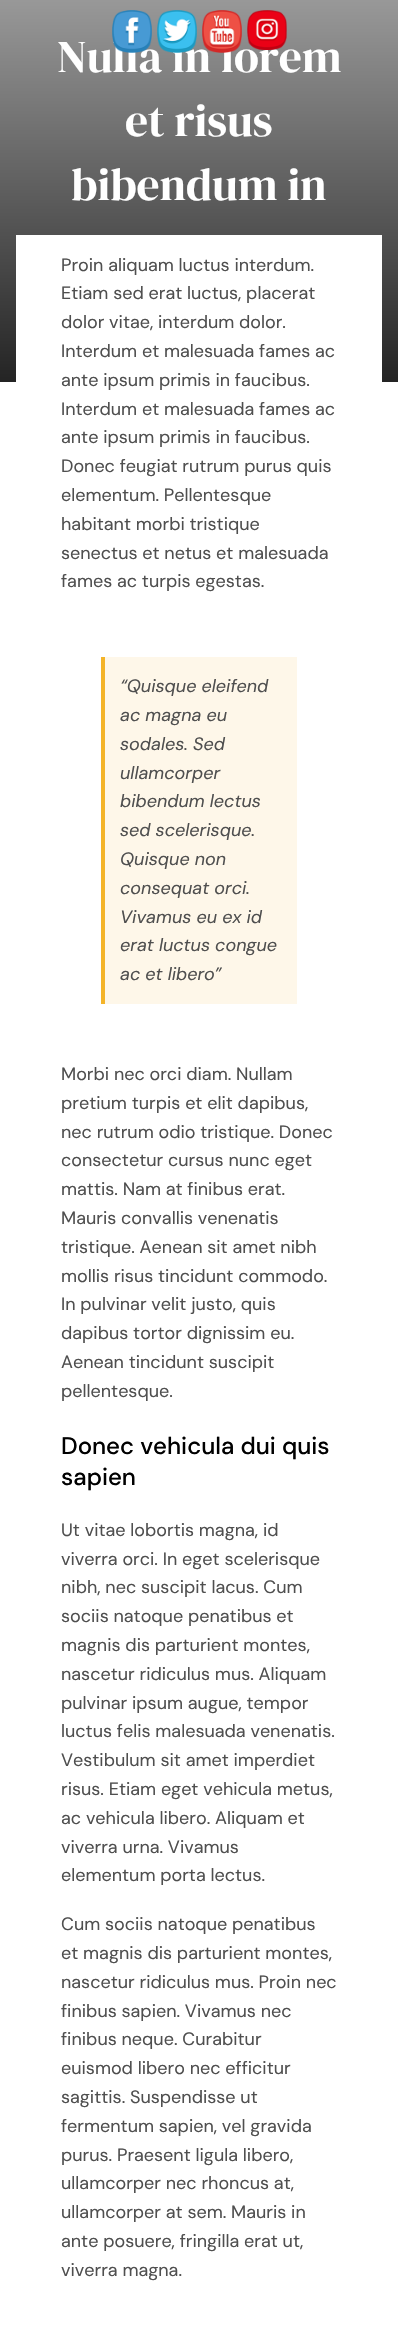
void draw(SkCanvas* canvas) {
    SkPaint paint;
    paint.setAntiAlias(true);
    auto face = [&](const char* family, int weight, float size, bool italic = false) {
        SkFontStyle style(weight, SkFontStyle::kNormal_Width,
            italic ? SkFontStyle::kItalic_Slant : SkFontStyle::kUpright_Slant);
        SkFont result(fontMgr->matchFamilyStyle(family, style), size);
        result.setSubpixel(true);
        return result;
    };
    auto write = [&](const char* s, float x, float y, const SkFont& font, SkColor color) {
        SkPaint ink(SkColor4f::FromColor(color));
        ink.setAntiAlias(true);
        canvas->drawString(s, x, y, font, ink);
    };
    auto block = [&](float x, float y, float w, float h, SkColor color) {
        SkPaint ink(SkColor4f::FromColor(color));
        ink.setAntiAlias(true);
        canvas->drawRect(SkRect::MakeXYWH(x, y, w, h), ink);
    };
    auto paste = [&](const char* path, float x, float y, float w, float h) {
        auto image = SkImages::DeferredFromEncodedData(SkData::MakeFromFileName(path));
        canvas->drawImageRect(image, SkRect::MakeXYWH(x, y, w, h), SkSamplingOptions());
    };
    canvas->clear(SK_ColorWHITE);
    {
        const SkColor colors[] = {SkColorSetRGB(161, 161, 161), SkColorSetRGB(36, 36, 36)};
        const float stops[] = {0, 1};
        const SkPoint ends[] = {{199, -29}, {199, 382}};
        paint.setShader(SkGradientShader::MakeLinear(ends, colors, stops, 2, SkTileMode::kClamp));
        paint.setAlpha(255);
    }
    canvas->drawRect(SkRect::MakeXYWH(0, 0, 398, 382), paint);
    auto kFont1 = face("DM Serif Display", 400, 45.5f);
    write("Nulla in lorem", 57, 72, kFont1, SK_ColorWHITE);
    paste("pic1.png", 112, 10, 40, 43);
    paste("pic2.png", 157, 10, 40, 43);
    paste("pic3.png", 202, 10, 40, 43);
    paste("pic4.png", 247, 10, 40, 40);
    write("et risus", 125, 136, kFont1, SK_ColorWHITE);
    write("bibendum in", 71, 200, kFont1, SK_ColorWHITE);
    block(16, 235, 366, 147, SK_ColorWHITE);
    auto kFont2 = face("DM Sans", 400, 18);
    write("Proin aliquam luctus interdum.", 61, 271, kFont2, SkColorSetRGB(79, 79, 79));
    write("Etiam sed erat luctus, placerat", 61, 299, kFont2, SkColorSetRGB(79, 79, 79));
    write("dolor vitae, interdum dolor.", 61, 328, kFont2, SkColorSetRGB(79, 79, 79));
    write("Interdum et malesuada fames ac", 61, 357, kFont2, SkColorSetRGB(79, 79, 79));
    write("ante ipsum primis in faucibus.", 61, 386, kFont2, SkColorSetRGB(79, 79, 79));
    write("Interdum et malesuada fames ac", 61, 415, kFont2, SkColorSetRGB(79, 79, 79));
    write("ante ipsum primis in faucibus.", 61, 443, kFont2, SkColorSetRGB(79, 79, 79));
    write("Donec feugiat rutrum purus quis", 61, 472, kFont2, SkColorSetRGB(79, 79, 79));
    write("elementum. Pellentesque", 61, 501, kFont2, SkColorSetRGB(79, 79, 79));
    write("habitant morbi tristique", 61, 530, kFont2, SkColorSetRGB(79, 79, 79));
    write("senectus et netus et malesuada", 61, 559, kFont2, SkColorSetRGB(79, 79, 79));
    write("fames ac turpis egestas.", 61, 587, kFont2, SkColorSetRGB(79, 79, 79));
    block(105, 657, 192, 347, SkColorSetRGB(254, 247, 233));
    block(101, 657, 4, 347, SkColorSetRGB(244, 180, 41));
    auto kFont3 = face("DM Sans", 400, 18, true);
    write("“Quisque eleifend", 120, 692, kFont3, SkColorSetRGB(79, 79, 79));
    write("ac magna eu", 120, 721, kFont3, SkColorSetRGB(79, 79, 79));
    write("sodales. Sed", 120, 750, kFont3, SkColorSetRGB(79, 79, 79));
    write("ullamcorper", 120, 779, kFont3, SkColorSetRGB(79, 79, 79));
    write("bibendum lectus", 120, 807, kFont3, SkColorSetRGB(79, 79, 79));
    write("sed scelerisque.", 120, 836, kFont3, SkColorSetRGB(79, 79, 79));
    write("Quisque non", 120, 865, kFont3, SkColorSetRGB(79, 79, 79));
    write("consequat orci.", 120, 894, kFont3, SkColorSetRGB(79, 79, 79));
    write("Vivamus eu ex id", 120, 923, kFont3, SkColorSetRGB(79, 79, 79));
    write("erat luctus congue", 120, 951, kFont3, SkColorSetRGB(79, 79, 79));
    write("ac et libero”", 120, 980, kFont3, SkColorSetRGB(79, 79, 79));
    write("Morbi nec orci diam. Nullam", 61, 1080, kFont2, SkColorSetRGB(79, 79, 79));
    write("pretium turpis et elit dapibus,", 61, 1109, kFont2, SkColorSetRGB(79, 79, 79));
    write("nec rutrum odio tristique. Donec", 61, 1138, kFont2, SkColorSetRGB(79, 79, 79));
    write("consectetur cursus nunc eget", 61, 1166, kFont2, SkColorSetRGB(79, 79, 79));
    write("mattis. Nam at finibus erat.", 61, 1195, kFont2, SkColorSetRGB(79, 79, 79));
    write("Mauris convallis venenatis", 61, 1224, kFont2, SkColorSetRGB(79, 79, 79));
    write("tristique. Aenean sit amet nibh", 61, 1253, kFont2, SkColorSetRGB(79, 79, 79));
    write("mollis risus tincidunt commodo.", 61, 1282, kFont2, SkColorSetRGB(79, 79, 79));
    write("In pulvinar velit justo, quis", 61, 1310, kFont2, SkColorSetRGB(79, 79, 79));
    write("dapibus tortor dignissim eu.", 61, 1339, kFont2, SkColorSetRGB(79, 79, 79));
    write("Aenean tincidunt suscipit", 61, 1368, kFont2, SkColorSetRGB(79, 79, 79));
    write("pellentesque.", 61, 1397, kFont2, SkColorSetRGB(79, 79, 79));
    auto kFont4 = face("DM Sans", 500, 24);
    write("Donec vehicula dui quis", 61, 1454, kFont4, SK_ColorBLACK);
    write("sapien", 61, 1485, kFont4, SK_ColorBLACK);
    write("Ut vitae lobortis magna, id", 61, 1536, kFont2, SkColorSetRGB(79, 79, 79));
    write("viverra orci. In eget scelerisque", 61, 1565, kFont2, SkColorSetRGB(79, 79, 79));
    write("nibh, nec suscipit lacus. Cum", 61, 1593, kFont2, SkColorSetRGB(79, 79, 79));
    write("sociis natoque penatibus et", 61, 1622, kFont2, SkColorSetRGB(79, 79, 79));
    write("magnis dis parturient montes,", 61, 1651, kFont2, SkColorSetRGB(79, 79, 79));
    write("nascetur ridiculus mus. Aliquam", 61, 1680, kFont2, SkColorSetRGB(79, 79, 79));
    write("pulvinar ipsum augue, tempor", 61, 1709, kFont2, SkColorSetRGB(79, 79, 79));
    write("luctus felis malesuada venenatis.", 61, 1737, kFont2, SkColorSetRGB(79, 79, 79));
    write("Vestibulum sit amet imperdiet", 61, 1766, kFont2, SkColorSetRGB(79, 79, 79));
    write("risus. Etiam eget vehicula metus,", 61, 1795, kFont2, SkColorSetRGB(79, 79, 79));
    write("ac vehicula libero. Aliquam et", 61, 1824, kFont2, SkColorSetRGB(79, 79, 79));
    write("viverra urna. Vivamus", 61, 1853, kFont2, SkColorSetRGB(79, 79, 79));
    write("elementum porta lectus.", 61, 1881, kFont2, SkColorSetRGB(79, 79, 79));
    write("Cum sociis natoque penatibus", 61, 1930, kFont2, SkColorSetRGB(79, 79, 79));
    write("et magnis dis parturient montes,", 61, 1959, kFont2, SkColorSetRGB(79, 79, 79));
    write("nascetur ridiculus mus. Proin nec", 61, 1988, kFont2, SkColorSetRGB(79, 79, 79));
    write("finibus sapien. Vivamus nec", 61, 2017, kFont2, SkColorSetRGB(79, 79, 79));
    write("finibus neque. Curabitur", 61, 2045, kFont2, SkColorSetRGB(79, 79, 79));
    write("euismod libero nec efficitur", 61, 2074, kFont2, SkColorSetRGB(79, 79, 79));
    write("sagittis. Suspendisse ut", 61, 2103, kFont2, SkColorSetRGB(79, 79, 79));
    write("fermentum sapien, vel gravida", 61, 2132, kFont2, SkColorSetRGB(79, 79, 79));
    write("purus. Praesent ligula libero,", 61, 2161, kFont2, SkColorSetRGB(79, 79, 79));
    write("ullamcorper nec rhoncus at,", 61, 2189, kFont2, SkColorSetRGB(79, 79, 79));
    write("ullamcorper at sem. Mauris in", 61, 2218, kFont2, SkColorSetRGB(79, 79, 79));
    write("ante posuere, fringilla erat ut,", 61, 2247, kFont2, SkColorSetRGB(79, 79, 79));
    write("viverra magna.", 61, 2276, kFont2, SkColorSetRGB(79, 79, 79));
}
